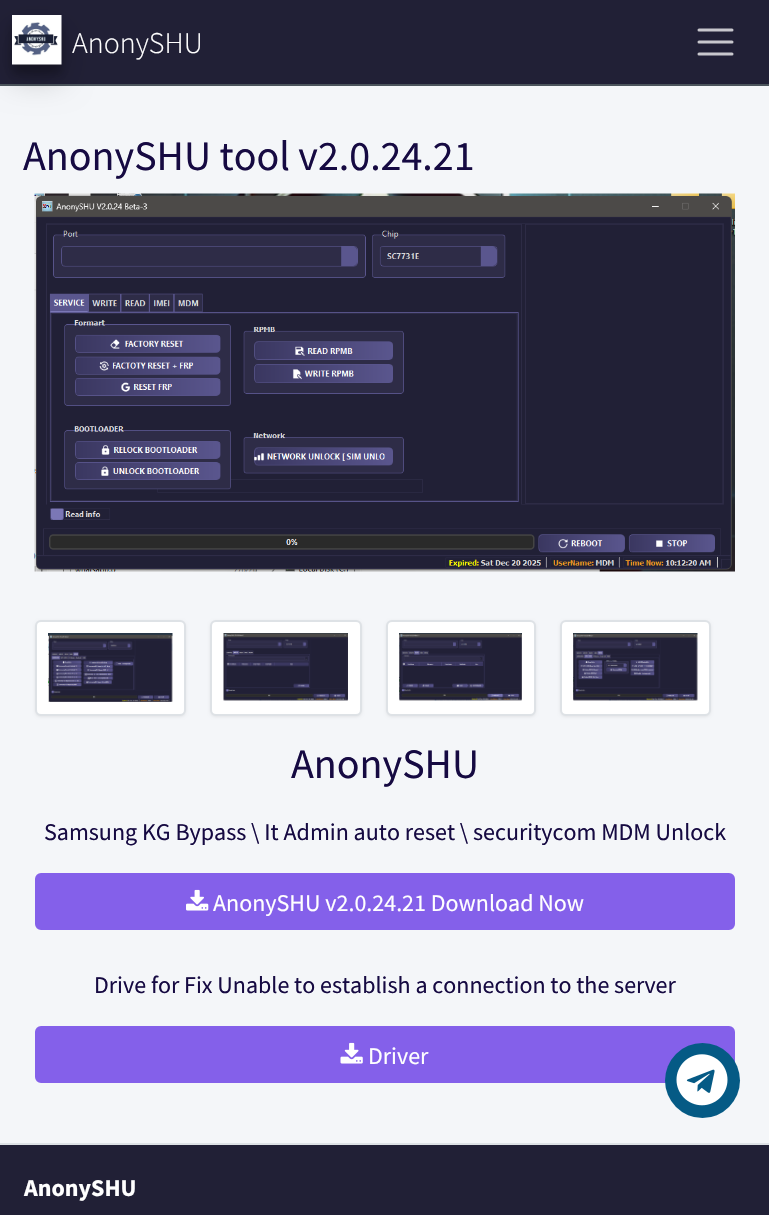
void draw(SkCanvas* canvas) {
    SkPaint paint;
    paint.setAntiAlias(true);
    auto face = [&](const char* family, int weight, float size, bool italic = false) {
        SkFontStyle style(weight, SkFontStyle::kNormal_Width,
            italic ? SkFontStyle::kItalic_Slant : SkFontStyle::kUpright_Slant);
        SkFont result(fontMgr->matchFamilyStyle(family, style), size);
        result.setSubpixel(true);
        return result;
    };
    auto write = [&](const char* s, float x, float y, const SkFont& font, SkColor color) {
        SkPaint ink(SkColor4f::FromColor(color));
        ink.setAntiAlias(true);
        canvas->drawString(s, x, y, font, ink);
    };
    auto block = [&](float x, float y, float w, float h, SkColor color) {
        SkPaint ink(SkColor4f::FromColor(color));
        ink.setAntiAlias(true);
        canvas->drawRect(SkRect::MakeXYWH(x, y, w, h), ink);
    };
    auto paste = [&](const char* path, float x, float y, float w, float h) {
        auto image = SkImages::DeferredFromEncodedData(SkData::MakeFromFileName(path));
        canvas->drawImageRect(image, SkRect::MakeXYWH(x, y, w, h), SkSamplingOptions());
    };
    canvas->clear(SkColorSetRGB(244, 246, 249));
    block(0, 0, 769, 84, SkColorSetRGB(33, 32, 54));
    block(0, 84, 769, 2, SkColorSetRGB(75, 84, 92));
    paint.setColor(SkColorSetARGB(48, 0, 0, 0));
    paint.setMaskFilter(SkMaskFilter::MakeBlur(kNormal_SkBlurStyle, 15));
    canvas->drawRect(SkRect::MakeXYWH(12, 30, 50, 50), paint);
    paint.setMaskFilter(nullptr);
    paint.setColor(SkColorSetARGB(59, 0, 0, 0));
    paint.setMaskFilter(SkMaskFilter::MakeBlur(kNormal_SkBlurStyle, 4.5f));
    canvas->drawRect(SkRect::MakeXYWH(12, 24, 50, 50), paint);
    paint.setMaskFilter(nullptr);
    paste("pic1.png", 12, 15, 50, 50);
    auto kFont1 = face("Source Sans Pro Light", 300, 30);
    write("AnonySHU", 72, 53, kFont1, SK_ColorWHITE);
    paint.setStyle(SkPaint::kStroke_Style);
    paint.setStrokeWidth(3);
    paint.setStrokeCap(SkPaint::kRound_Cap);
    paint.setColor(SkColorSetRGB(200, 199, 205));
    canvas->drawPath(SkPathBuilder().moveTo(699, 30).lineTo(732, 30).moveTo(699, 42).lineTo(732, 42).moveTo(699, 54).lineTo(732, 54).detach(), paint);
    auto kFont2 = face("Source Sans Pro", 400, 42);
    write("AnonySHU tool v2.0.24.21", 23, 170, kFont2, SkColorSetRGB(22, 10, 66));
    paste("pic2.png", 34, 193, 701, 379);
    paint.setStyle(SkPaint::kFill_Style);
    paint.setColor(SkColorSetARGB(18, 0, 0, 0));
    paint.setMaskFilter(SkMaskFilter::MakeBlur(kNormal_SkBlurStyle, 1.5f));
    canvas->drawRoundRect(SkRect::MakeXYWH(35, 621, 151, 96), 6, 6, paint);
    paint.setMaskFilter(nullptr);
    paint.setColor(SK_ColorWHITE);
    canvas->drawRoundRect(SkRect::MakeXYWH(36, 621, 149, 94), 5, 5, paint);
    paint.setStyle(SkPaint::kStroke_Style);
    paint.setStrokeWidth(2);
    paint.setStrokeCap(SkPaint::kButt_Cap);
    paint.setColor(SkColorSetRGB(222, 226, 230));
    canvas->drawRoundRect(SkRect::MakeXYWH(36, 621, 149, 94), 5, 5, paint);
    paste("pic3.png", 48, 633, 125, 69);
    paint.setStyle(SkPaint::kFill_Style);
    paint.setColor(SkColorSetARGB(18, 0, 0, 0));
    paint.setMaskFilter(SkMaskFilter::MakeBlur(kNormal_SkBlurStyle, 1.5f));
    canvas->drawRoundRect(SkRect::MakeXYWH(210, 621, 152, 96), 6, 6, paint);
    paint.setMaskFilter(nullptr);
    paint.setColor(SK_ColorWHITE);
    canvas->drawRoundRect(SkRect::MakeXYWH(211, 621, 150, 94), 5, 5, paint);
    paint.setStyle(SkPaint::kStroke_Style);
    paint.setColor(SkColorSetRGB(222, 226, 230));
    canvas->drawRoundRect(SkRect::MakeXYWH(211, 621, 150, 94), 5, 5, paint);
    paste("pic4.png", 223, 633, 125, 68);
    paint.setStyle(SkPaint::kFill_Style);
    paint.setColor(SkColorSetARGB(18, 0, 0, 0));
    paint.setMaskFilter(SkMaskFilter::MakeBlur(kNormal_SkBlurStyle, 1.5f));
    canvas->drawRoundRect(SkRect::MakeXYWH(386, 621, 150, 96), 6, 6, paint);
    paint.setMaskFilter(nullptr);
    paint.setColor(SK_ColorWHITE);
    canvas->drawRoundRect(SkRect::MakeXYWH(387, 621, 148, 94), 5, 5, paint);
    paint.setStyle(SkPaint::kStroke_Style);
    paint.setColor(SkColorSetRGB(222, 226, 230));
    canvas->drawRoundRect(SkRect::MakeXYWH(387, 621, 148, 94), 5, 5, paint);
    paste("pic5.png", 399, 633, 123, 68);
    paint.setStyle(SkPaint::kFill_Style);
    paint.setColor(SkColorSetARGB(18, 0, 0, 0));
    paint.setMaskFilter(SkMaskFilter::MakeBlur(kNormal_SkBlurStyle, 1.5f));
    canvas->drawRoundRect(SkRect::MakeXYWH(560, 621, 151, 96), 6, 6, paint);
    paint.setMaskFilter(nullptr);
    paint.setColor(SK_ColorWHITE);
    canvas->drawRoundRect(SkRect::MakeXYWH(561, 621, 149, 94), 5, 5, paint);
    paint.setStyle(SkPaint::kStroke_Style);
    paint.setColor(SkColorSetRGB(222, 226, 230));
    canvas->drawRoundRect(SkRect::MakeXYWH(561, 621, 149, 94), 5, 5, paint);
    paste("pic6.png", 573, 633, 125, 68);
    write("AnonySHU", 291, 778, kFont2, SkColorSetRGB(22, 10, 66));
    auto kFont3 = face("Source Sans Pro", 400, 24);
    write("Samsung KG Bypass \\ It Admin auto reset \\ securitycom MDM Unlock", 44, 840, kFont3, SkColorSetRGB(22, 10, 66));
    paint.setStyle(SkPaint::kFill_Style);
    paint.setColor(SkColorSetRGB(132, 96, 234));
    canvas->drawRoundRect(SkRect::MakeXYWH(36, 874, 698, 55), 5, 5, paint);
    paint.setStyle(SkPaint::kStroke_Style);
    canvas->drawRoundRect(SkRect::MakeXYWH(36, 874, 698, 55), 5, 5, paint);
    paste("pic7.png", 186, 889, 23, 22);
    write("AnonySHU v2.0.24.21 Download Now", 213, 911, kFont3, SK_ColorWHITE);
    write("Drive for Fix Unable to establish a connection to the server", 94, 993, kFont3, SkColorSetRGB(22, 10, 66));
    paint.setStyle(SkPaint::kFill_Style);
    canvas->drawRoundRect(SkRect::MakeXYWH(36, 1027, 698, 55), 5, 5, paint);
    paint.setStyle(SkPaint::kStroke_Style);
    canvas->drawRoundRect(SkRect::MakeXYWH(36, 1027, 698, 55), 5, 5, paint);
    paste("pic8.png", 340, 1042, 23, 22);
    write("Driver", 368, 1064, kFont3, SK_ColorWHITE);
    paint.setStyle(SkPaint::kFill_Style);
    paint.setColor(SkColorSetRGB(5, 90, 133));
    canvas->drawCircle(702.5f, 1080.5f, 37.5f, paint);
    paste("pic9.png", 676, 1054, 52, 52);
    block(0, 1145, 769, 70, SkColorSetRGB(33, 32, 54));
    block(0, 1143, 769, 2, SkColorSetRGB(222, 226, 230));
    auto kFont4 = face("Source Sans Pro", 700, 24);
    write("AnonySHU", 24, 1196, kFont4, SK_ColorWHITE);
}
